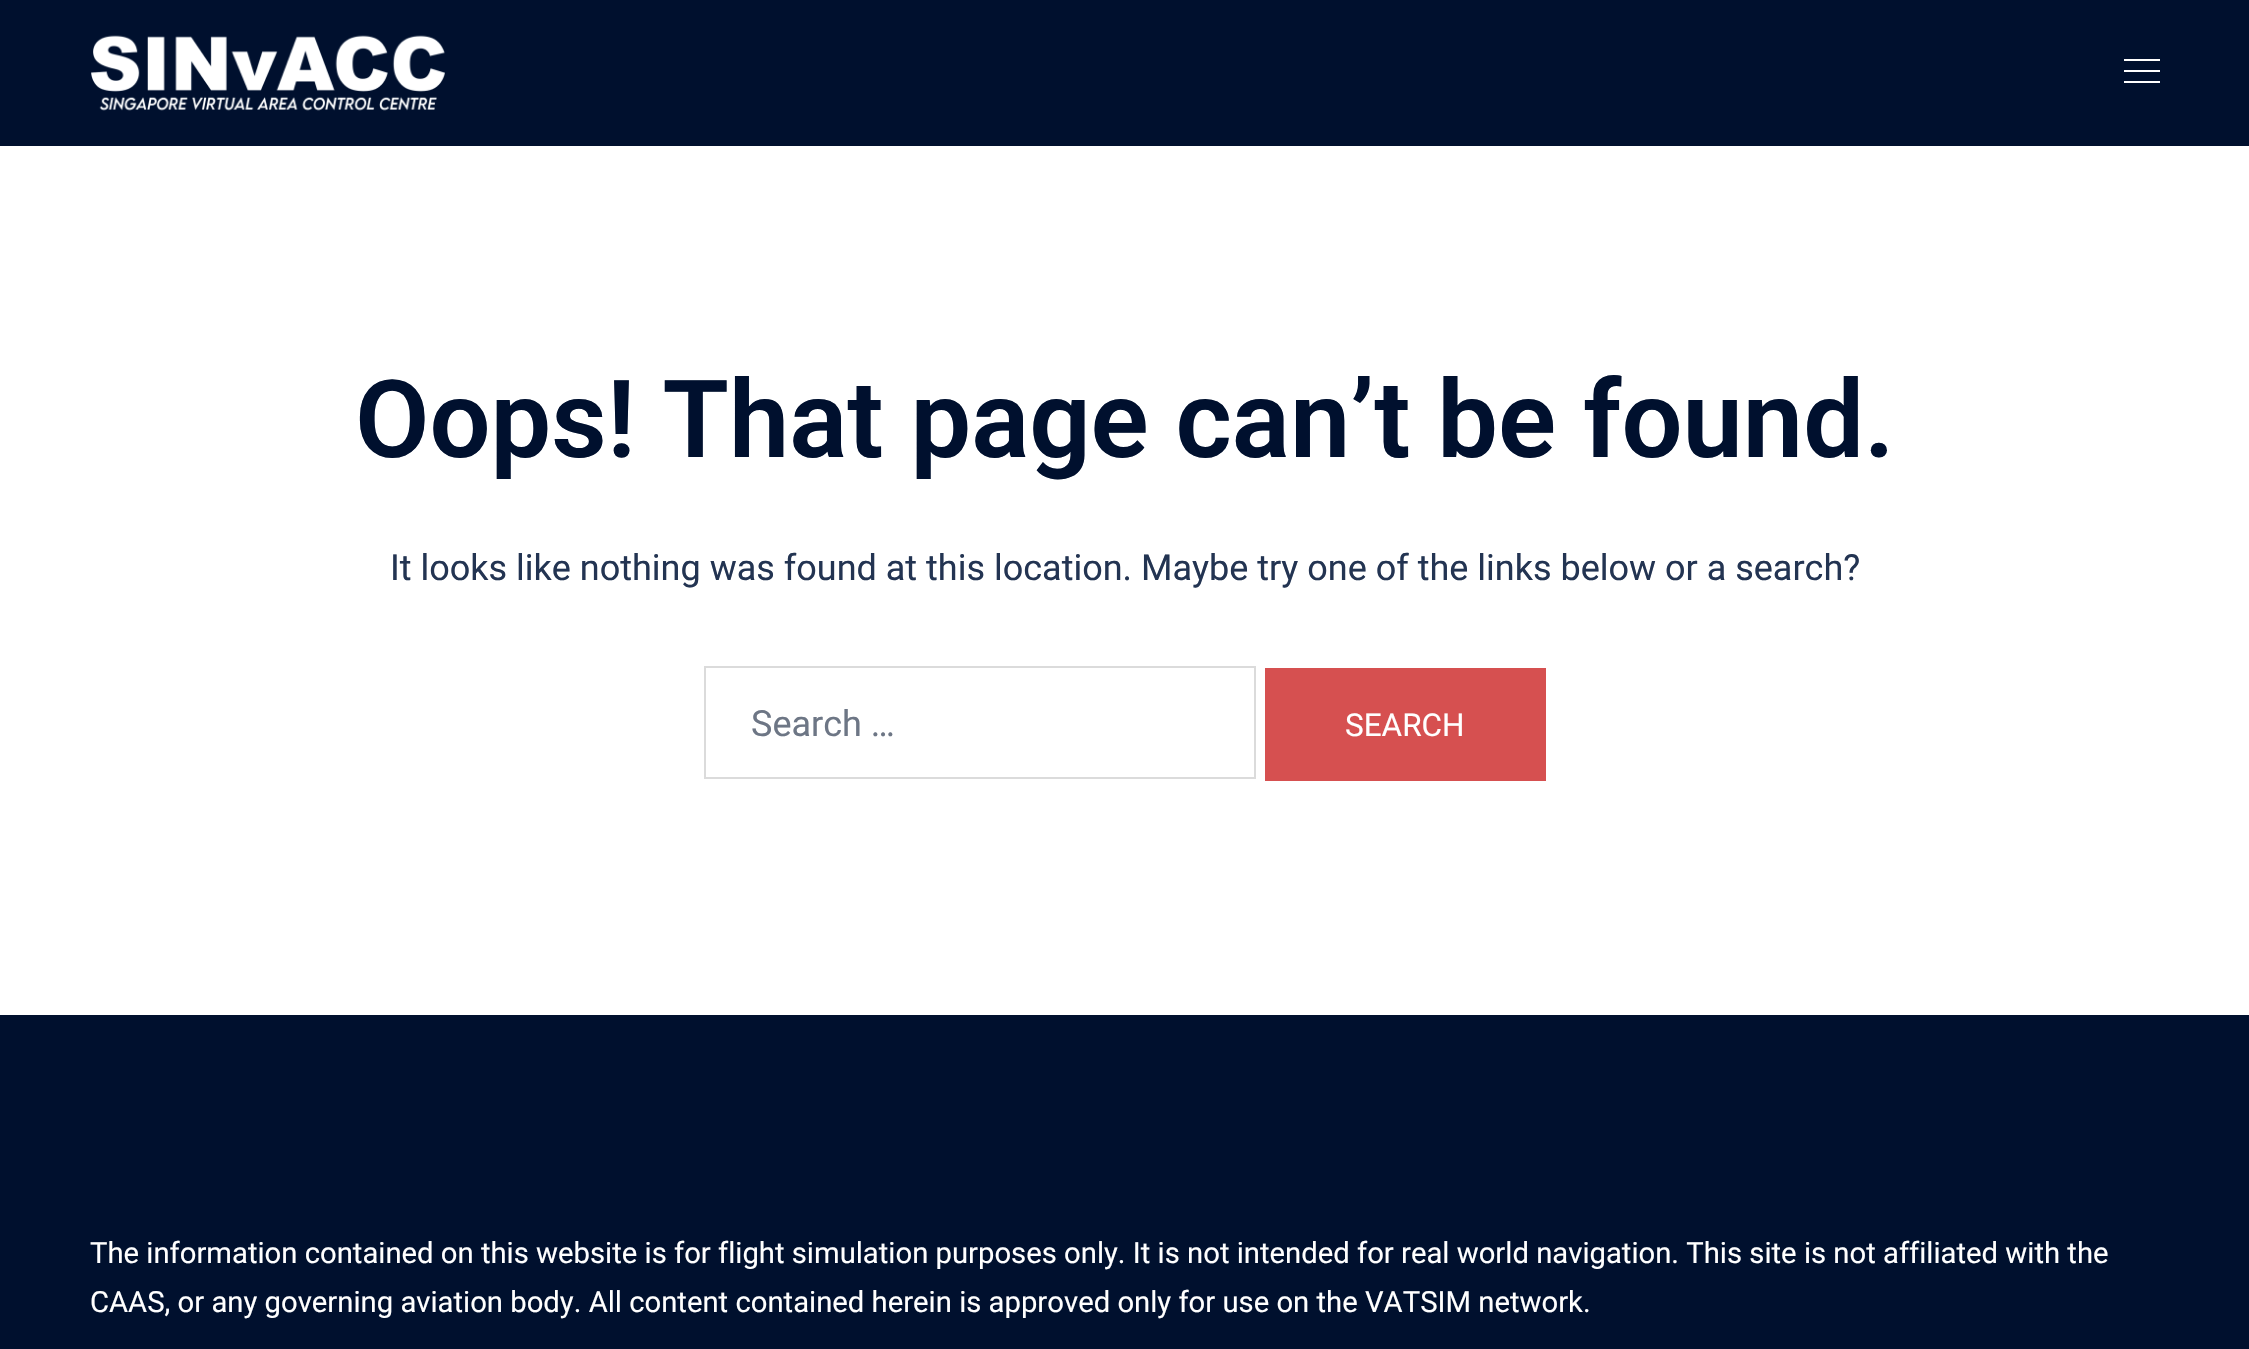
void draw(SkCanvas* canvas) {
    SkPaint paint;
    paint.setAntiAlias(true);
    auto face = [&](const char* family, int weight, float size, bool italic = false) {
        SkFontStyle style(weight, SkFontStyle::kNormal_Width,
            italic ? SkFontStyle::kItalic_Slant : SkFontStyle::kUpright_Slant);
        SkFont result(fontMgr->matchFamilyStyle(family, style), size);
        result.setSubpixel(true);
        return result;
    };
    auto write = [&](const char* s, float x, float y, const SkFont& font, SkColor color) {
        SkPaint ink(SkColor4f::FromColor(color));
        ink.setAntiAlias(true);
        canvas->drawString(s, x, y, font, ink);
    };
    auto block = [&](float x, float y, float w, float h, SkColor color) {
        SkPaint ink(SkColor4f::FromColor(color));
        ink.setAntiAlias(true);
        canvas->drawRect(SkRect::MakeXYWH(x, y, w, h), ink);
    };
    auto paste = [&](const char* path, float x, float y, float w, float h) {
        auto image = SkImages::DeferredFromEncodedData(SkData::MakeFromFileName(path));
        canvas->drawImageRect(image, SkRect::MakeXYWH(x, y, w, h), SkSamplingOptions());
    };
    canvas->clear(SK_ColorWHITE);
    block(0, 0, 2249, 146, SkColorSetRGB(0, 16, 46));
    paste("pic1.png", 91, 35, 354, 76);
    block(2124, 59, 36, 2, SK_ColorWHITE);
    block(2124, 70, 36, 2, SK_ColorWHITE);
    block(2124, 81, 36, 2, SK_ColorWHITE);
    auto kFont1 = face("Roboto", 600, 108);
    write("Oops! That page can’t be found.", 355, 457, kFont1, SkColorSetRGB(0, 16, 46));
    auto kFont2 = face("Roboto", 400, 36);
    write("It looks like nothing was found at this location. Maybe try one of the links below or a search?", 390, 580, kFont2, SkColorSetRGB(35, 52, 82));
    paint.setStyle(SkPaint::kStroke_Style);
    paint.setStrokeWidth(2);
    paint.setColor(SkColorSetRGB(219, 219, 219));
    canvas->drawRect(SkRect::MakeXYWH(705, 667, 550, 111), paint);
    write("Search …", 751, 736, kFont2, SkColorSetRGB(109, 118, 133));
    block(1265, 668, 281, 113, SkColorSetRGB(214, 80, 80));
    auto kFont3 = face("Roboto", 400, 31.5f);
    write("SEARCH", 1345, 736, kFont3, SK_ColorWHITE);
    block(0, 1015, 2249, 334, SkColorSetRGB(0, 16, 46));
    auto kFont4 = face("Roboto", 400, 29.25f);
    write("The information contained on this website is for flight simulation purposes only. It is not intended for real world navigation. This site is not affiliated with the", 90, 1263, kFont4, SK_ColorWHITE);
    write("CAAS, or any governing aviation body. All content contained herein is approved only for use on the VATSIM network.", 90, 1312, kFont4, SK_ColorWHITE);
}
